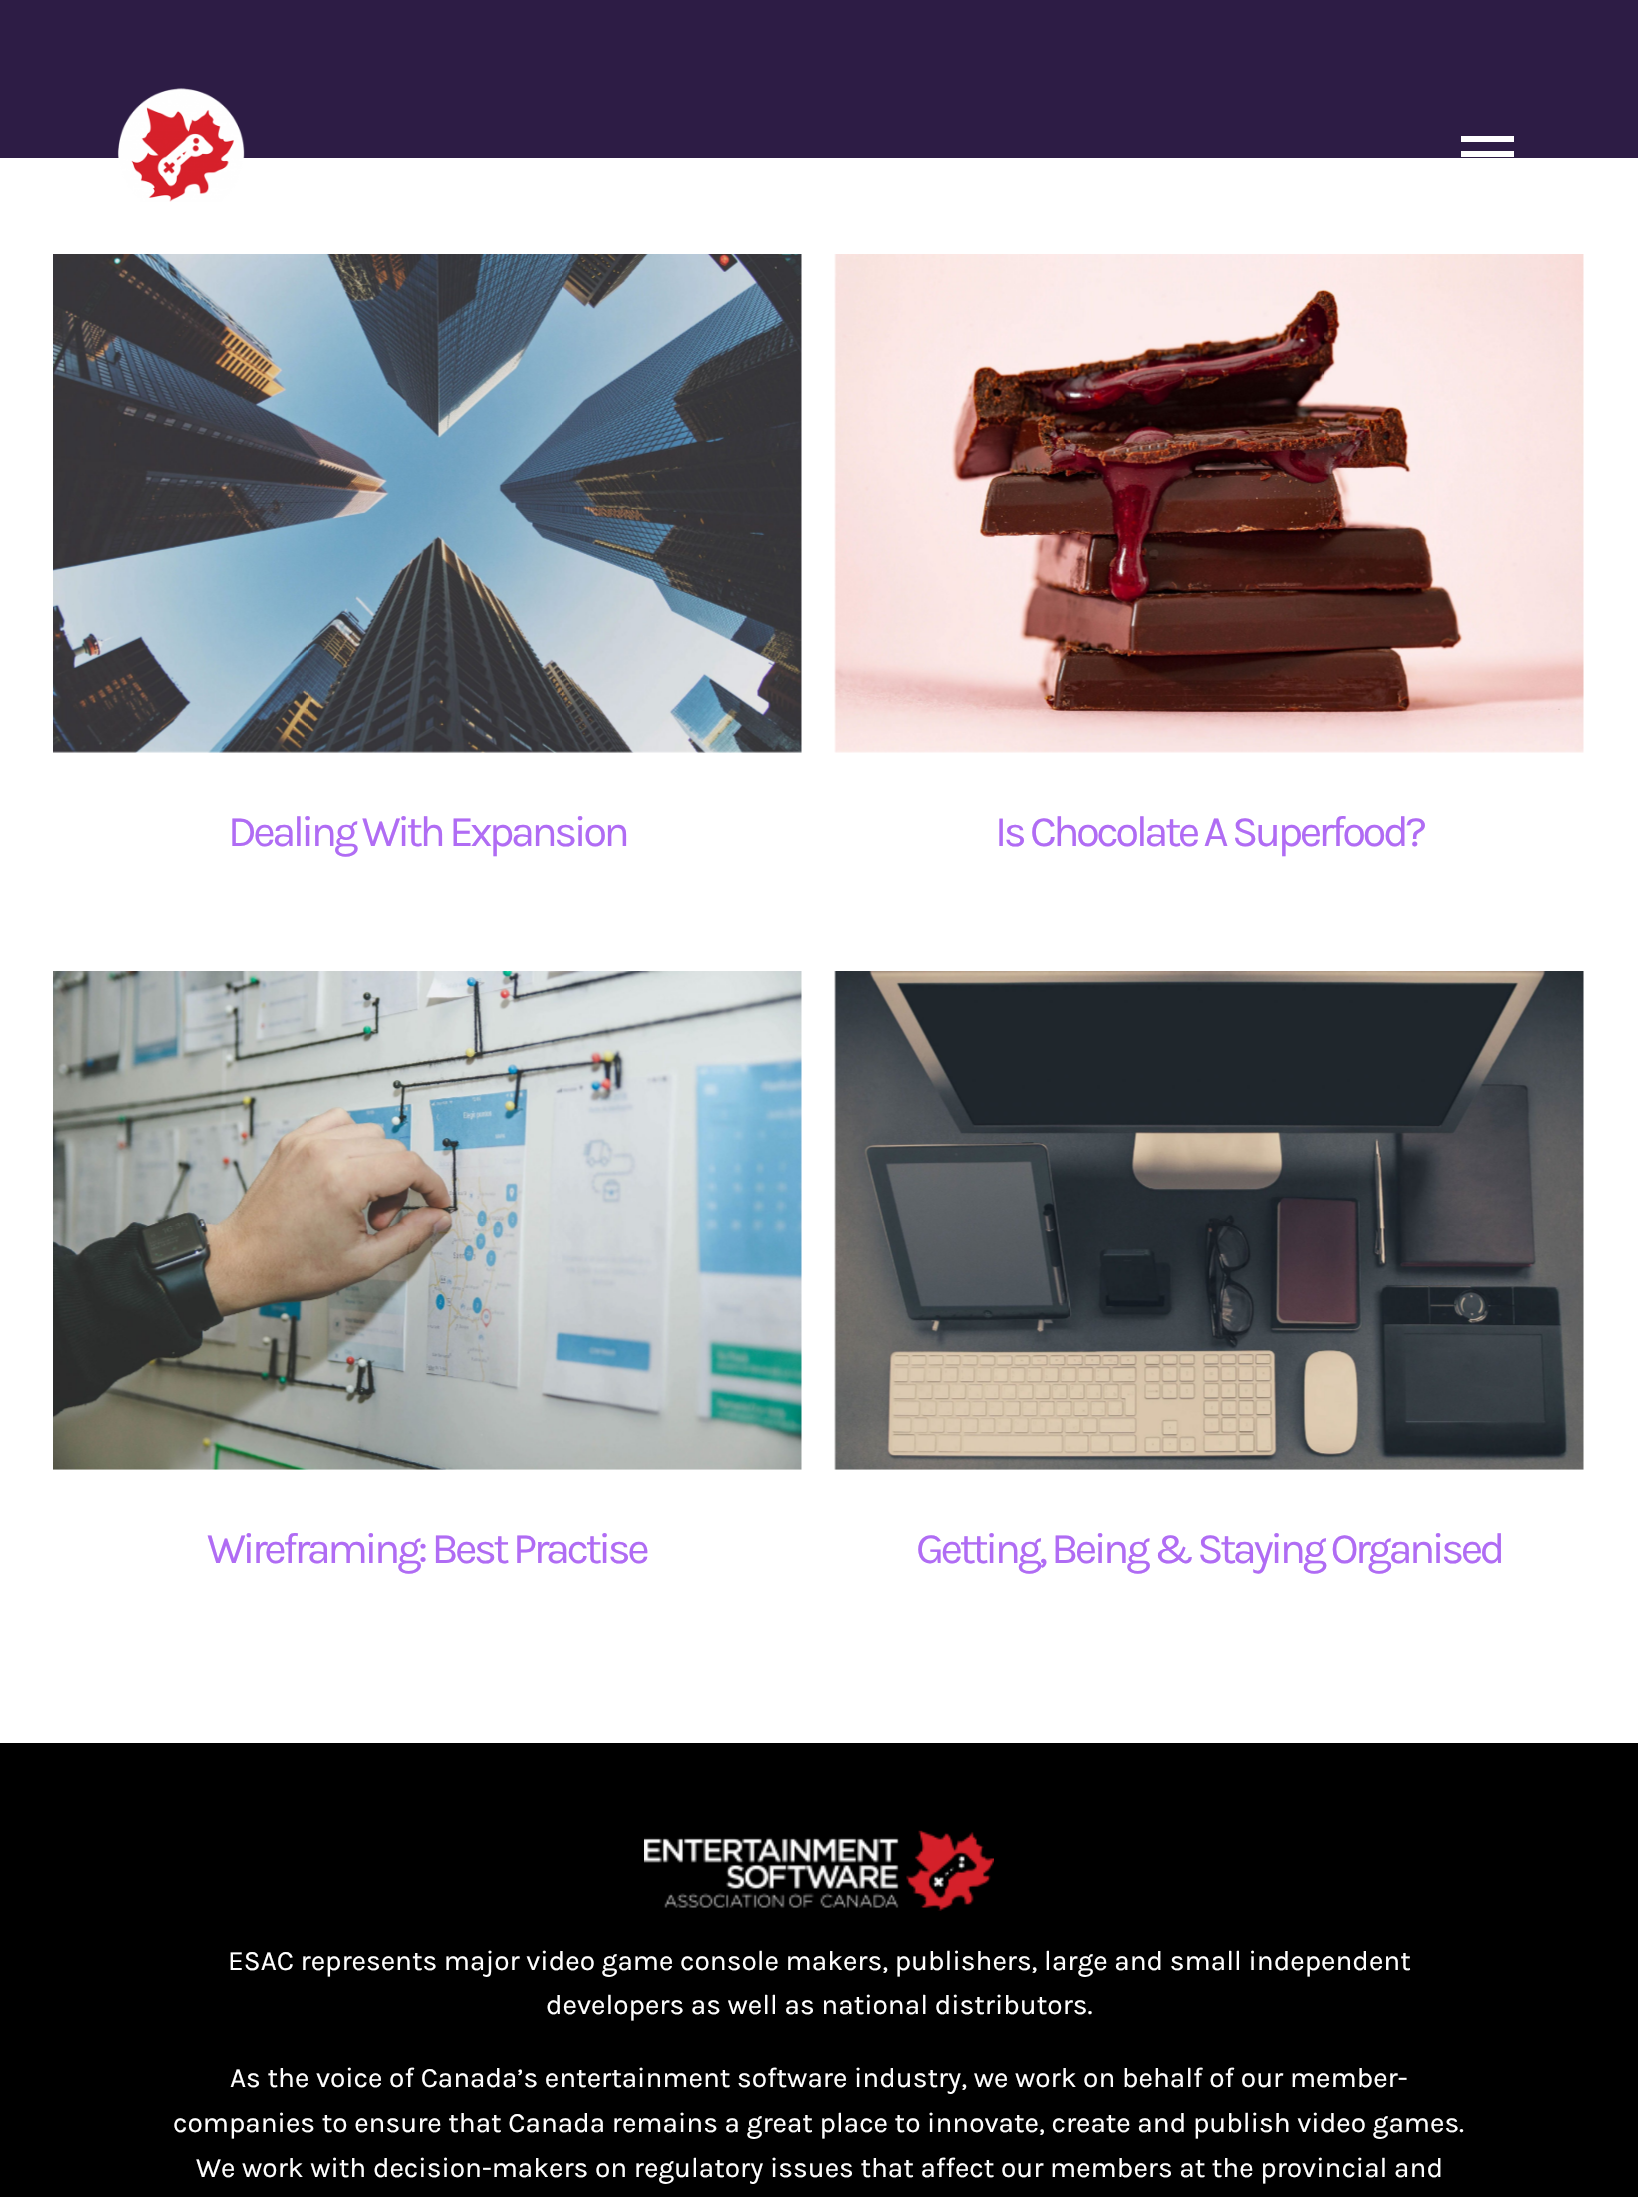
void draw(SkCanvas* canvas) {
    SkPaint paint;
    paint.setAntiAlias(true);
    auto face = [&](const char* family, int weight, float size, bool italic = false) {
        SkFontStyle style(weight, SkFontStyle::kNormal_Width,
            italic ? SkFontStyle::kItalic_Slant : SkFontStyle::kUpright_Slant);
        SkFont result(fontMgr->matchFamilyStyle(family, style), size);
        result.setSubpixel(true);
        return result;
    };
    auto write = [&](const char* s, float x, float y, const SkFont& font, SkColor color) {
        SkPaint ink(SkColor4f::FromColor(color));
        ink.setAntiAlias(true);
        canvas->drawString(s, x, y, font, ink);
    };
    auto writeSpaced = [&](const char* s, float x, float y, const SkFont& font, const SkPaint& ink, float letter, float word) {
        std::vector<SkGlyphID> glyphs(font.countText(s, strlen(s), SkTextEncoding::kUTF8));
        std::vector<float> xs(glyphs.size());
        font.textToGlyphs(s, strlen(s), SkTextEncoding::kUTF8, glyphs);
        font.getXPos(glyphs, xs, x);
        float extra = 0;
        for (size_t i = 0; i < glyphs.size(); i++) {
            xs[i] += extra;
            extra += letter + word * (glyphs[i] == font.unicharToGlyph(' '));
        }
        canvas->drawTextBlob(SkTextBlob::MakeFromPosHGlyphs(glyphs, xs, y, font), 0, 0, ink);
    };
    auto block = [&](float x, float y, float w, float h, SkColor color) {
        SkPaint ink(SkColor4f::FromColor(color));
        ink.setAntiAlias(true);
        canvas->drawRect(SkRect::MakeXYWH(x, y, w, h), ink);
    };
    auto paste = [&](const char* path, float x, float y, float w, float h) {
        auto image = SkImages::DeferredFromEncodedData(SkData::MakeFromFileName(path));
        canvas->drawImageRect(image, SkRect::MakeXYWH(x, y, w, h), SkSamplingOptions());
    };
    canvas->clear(SK_ColorWHITE);
    block(0, 0, 1638, 158, SkColorSetRGB(45, 28, 69));
    paste("pic1.png", 117, 88, 128, 114);
    paint.setColor(SK_ColorWHITE);
    canvas->drawPath(SkPathBuilder().moveTo(1461, 136).lineTo(1514, 136).lineTo(1514, 142).lineTo(1461, 142).close().moveTo(1461, 157).lineTo(1461, 151).lineTo(1514, 151).lineTo(1514, 157).close().moveTo(1461, 172).lineTo(1461, 166).lineTo(1514, 166).lineTo(1514, 172).close().detach(), paint);
    paste("pic2.png", 53, 254, 749, 499);
    auto kFont1 = face("Karla", 400, 43.6f);
    paint.setColor(SkColorSetRGB(176, 108, 244));
    writeSpaced("Dealing With Expansion", 228, 846, kFont1, paint, -3.5f, 0);
    paste("pic3.png", 834, 254, 750, 499);
    writeSpaced("Is Chocolate A Superfood?", 995, 846, kFont1, paint, -3.5f, 0);
    paste("pic4.png", 53, 971, 749, 499);
    writeSpaced("Wireframing: Best Practise", 207, 1563, kFont1, paint, -3.5f, 0);
    paste("pic5.png", 834, 971, 750, 499);
    writeSpaced("Getting, Being & Staying Organised", 916, 1563, kFont1, paint, -3.5f, 0);
    block(0, 1743, 1638, 454, SK_ColorBLACK);
    paste("pic6.png", 644, 1830, 350, 81);
    auto kFont2 = face("Karla", 400, 28);
    write("ESAC represents major video game console makers, publishers, large and small independent", 228, 1970, kFont2, SK_ColorWHITE);
    write("developers as well as national distributors.", 546, 2014, kFont2, SK_ColorWHITE);
    write("As the voice of Canada’s entertainment software industry, we work on behalf of our member-", 230, 2087, kFont2, SK_ColorWHITE);
    write("companies to ensure that Canada remains a great place to innovate, create and publish video games.", 173, 2132, kFont2, SK_ColorWHITE);
    write("We work with decision-makers on regulatory issues that affect our members at the provincial and", 196, 2177, kFont2, SK_ColorWHITE);
}
